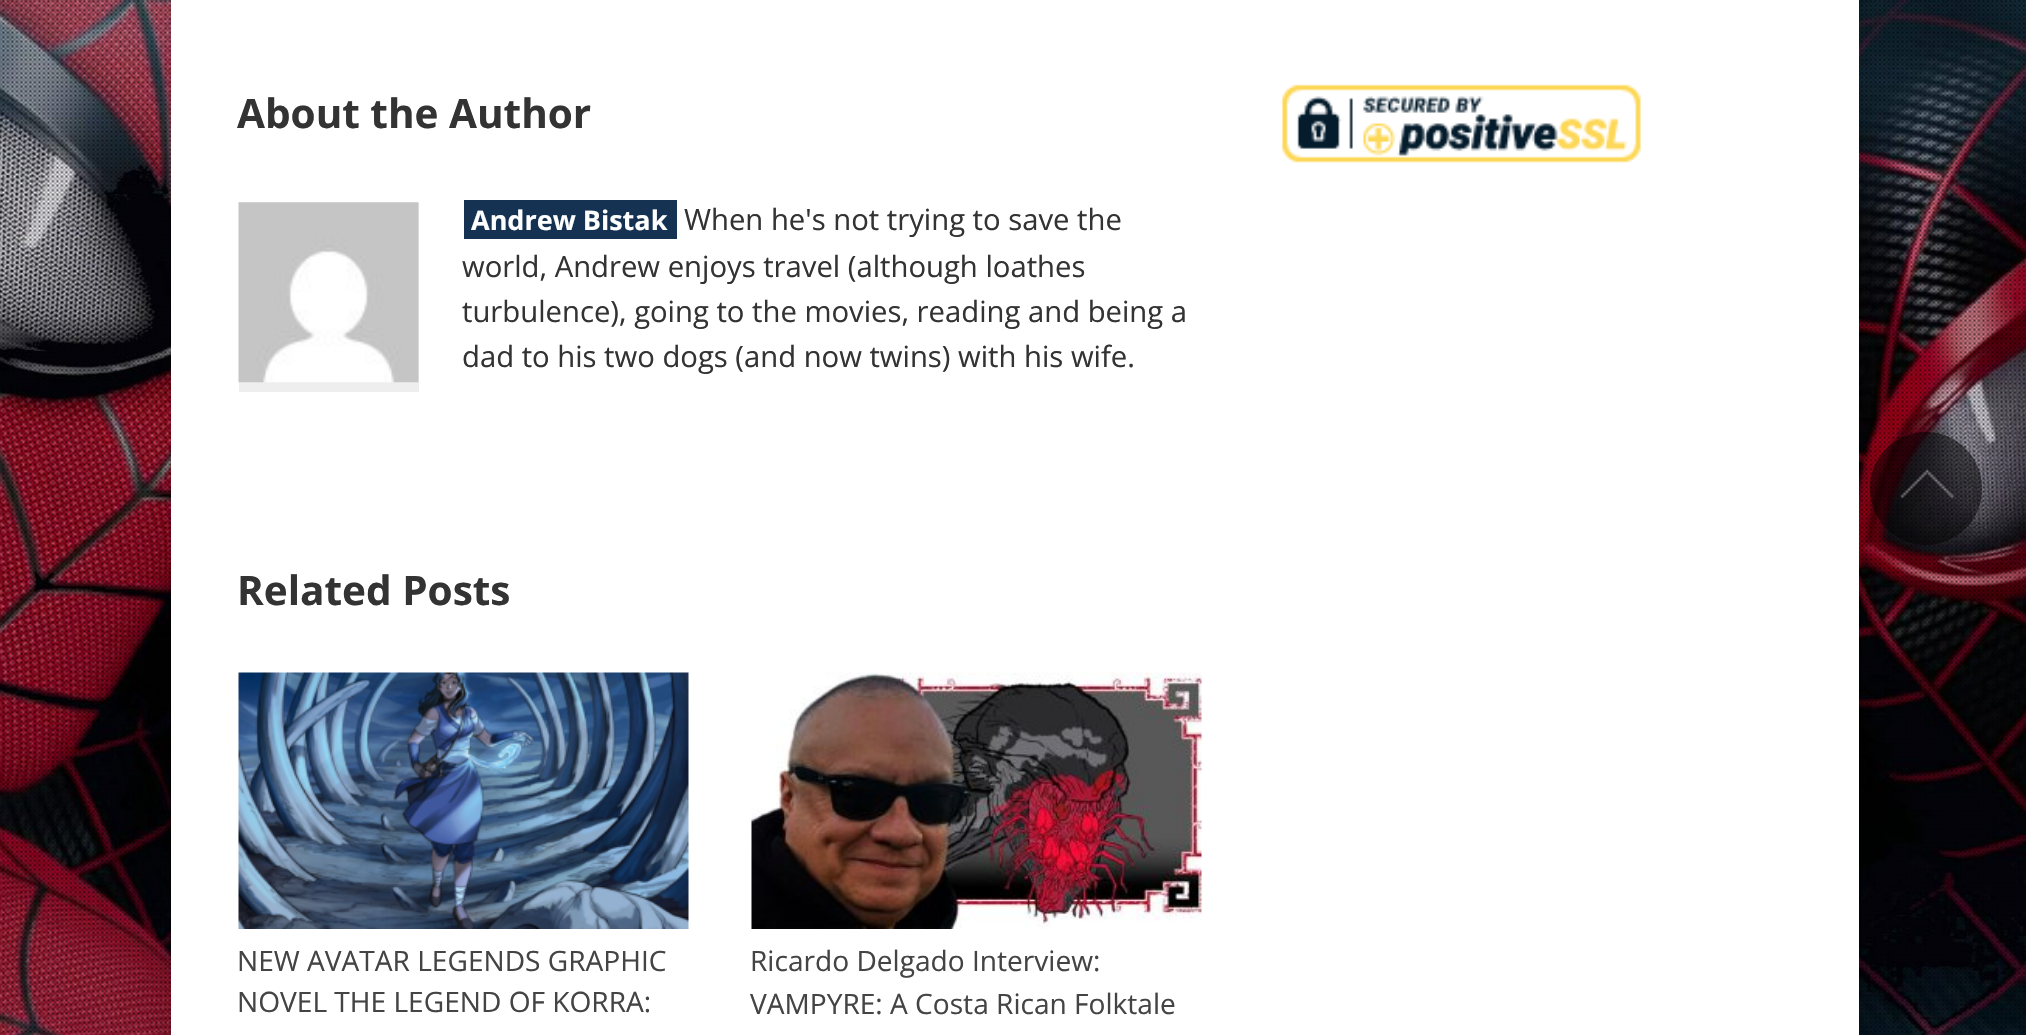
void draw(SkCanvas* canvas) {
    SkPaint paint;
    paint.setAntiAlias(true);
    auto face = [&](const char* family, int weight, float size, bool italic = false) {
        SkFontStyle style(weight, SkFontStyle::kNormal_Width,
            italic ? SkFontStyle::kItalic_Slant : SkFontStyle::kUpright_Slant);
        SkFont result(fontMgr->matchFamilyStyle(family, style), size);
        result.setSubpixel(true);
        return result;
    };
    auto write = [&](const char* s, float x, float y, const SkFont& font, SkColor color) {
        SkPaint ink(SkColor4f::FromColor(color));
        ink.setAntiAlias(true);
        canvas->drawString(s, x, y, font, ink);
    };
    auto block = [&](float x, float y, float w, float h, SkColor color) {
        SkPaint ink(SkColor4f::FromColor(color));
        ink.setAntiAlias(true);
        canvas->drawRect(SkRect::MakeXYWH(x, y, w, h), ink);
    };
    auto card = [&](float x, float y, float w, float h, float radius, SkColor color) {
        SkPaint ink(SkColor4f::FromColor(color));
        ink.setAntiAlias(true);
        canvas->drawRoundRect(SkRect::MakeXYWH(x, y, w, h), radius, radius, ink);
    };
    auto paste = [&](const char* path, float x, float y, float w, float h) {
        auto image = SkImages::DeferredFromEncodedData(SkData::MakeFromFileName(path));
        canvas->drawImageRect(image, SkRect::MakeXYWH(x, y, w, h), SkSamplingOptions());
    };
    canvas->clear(SK_ColorWHITE);
    paste("pic1.png", 0, 0, 2026, 1035);
    paste("pic2.png", 0, 0, 2026, 1035);
    paint.setColor(SkColorSetARGB(26, 0, 0, 0));
    paint.setMaskFilter(SkMaskFilter::MakeBlur(kNormal_SkBlurStyle, 11));
    canvas->drawRect(SkRect::MakeXYWH(171, -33, 1688, 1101), paint);
    paint.setMaskFilter(nullptr);
    block(171, 0, 1688, 1035, SK_ColorWHITE);
    auto kFont1 = face("Open Sans", 700, 40.5f);
    write("About the Author", 237, 128, kFont1, SkColorSetRGB(51, 51, 51));
    block(239, 203, 180, 189, SkColorSetRGB(238, 238, 238));
    paste("pic3.png", 238, 202, 181, 181);
    block(464, 200, 213, 39, SkColorSetRGB(22, 50, 82));
    auto kFont2 = face("Open Sans", 700, 27);
    write("Andrew Bistak", 471, 230, kFont2, SK_ColorWHITE);
    auto kFont3 = face("Open Sans", 400, 29.25f);
    write("When he's not trying to save the", 684, 230, kFont3, SkColorSetRGB(51, 51, 51));
    write("world, Andrew enjoys travel (although loathes", 462, 277, kFont3, SkColorSetRGB(51, 51, 51));
    write("turbulence), going to the movies, reading and being a", 462, 322, kFont3, SkColorSetRGB(51, 51, 51));
    write("dad to his two dogs (and now twins) with his wife.", 462, 367, kFont3, SkColorSetRGB(51, 51, 51));
    write("Related Posts", 237, 605, kFont1, SkColorSetRGB(51, 51, 51));
    paste("pic4.png", 238, 672, 451, 257);
    auto kFont4 = face("Open Sans", 400, 28.1f);
    write("NEW AVATAR LEGENDS GRAPHIC", 237, 971, kFont4, SkColorSetRGB(68, 68, 68));
    write("NOVEL THE LEGEND OF KORRA:", 237, 1012, kFont4, SkColorSetRGB(68, 68, 68));
    paste("pic5.png", 751, 672, 451, 257);
    write("Ricardo Delgado Interview:", 750, 971, kFont4, SkColorSetRGB(68, 68, 68));
    write("VAMPYRE: A Costa Rican Folktale", 750, 1014, kFont4, SkColorSetRGB(68, 68, 68));
    paste("pic6.png", 1280, 84, 361, 79);
    card(1870, 432, 112, 113, 56, SkColorSetARGB(128, 0, 0, 0));
    paste("pic7.png", 1900, 469, 54, 29);
}
